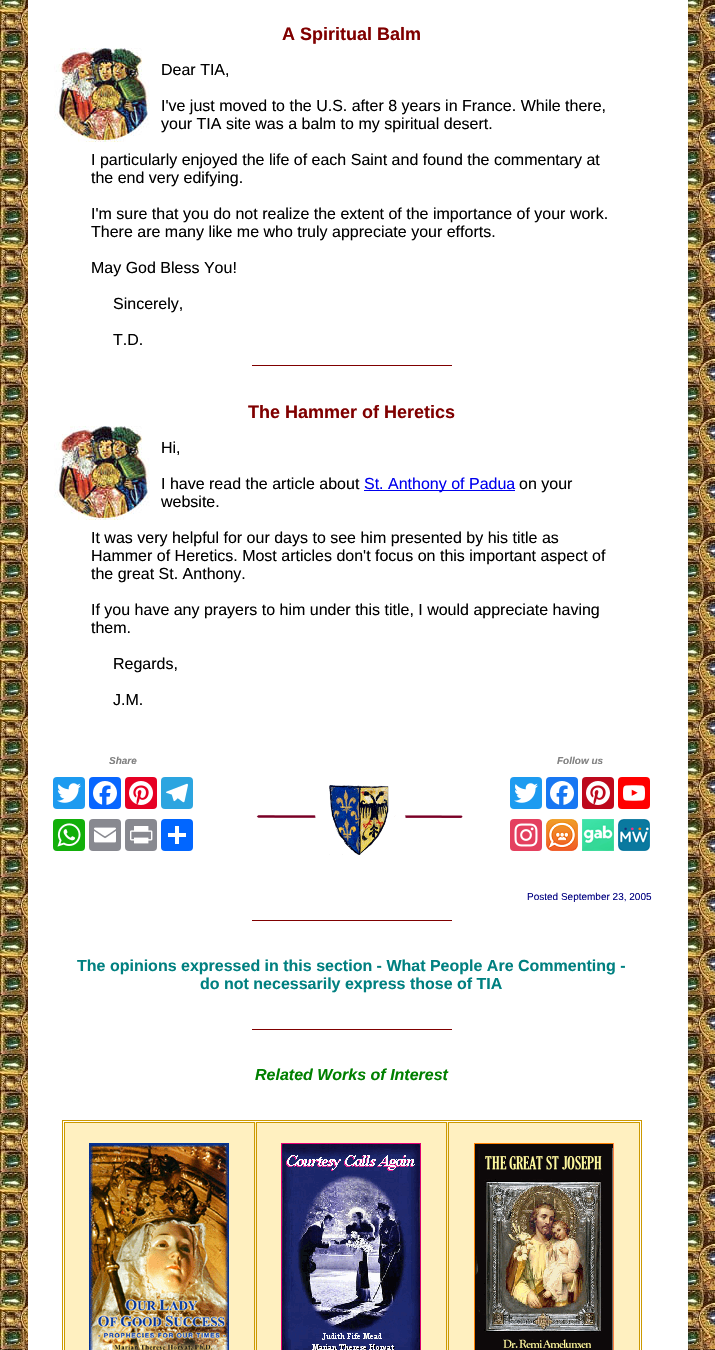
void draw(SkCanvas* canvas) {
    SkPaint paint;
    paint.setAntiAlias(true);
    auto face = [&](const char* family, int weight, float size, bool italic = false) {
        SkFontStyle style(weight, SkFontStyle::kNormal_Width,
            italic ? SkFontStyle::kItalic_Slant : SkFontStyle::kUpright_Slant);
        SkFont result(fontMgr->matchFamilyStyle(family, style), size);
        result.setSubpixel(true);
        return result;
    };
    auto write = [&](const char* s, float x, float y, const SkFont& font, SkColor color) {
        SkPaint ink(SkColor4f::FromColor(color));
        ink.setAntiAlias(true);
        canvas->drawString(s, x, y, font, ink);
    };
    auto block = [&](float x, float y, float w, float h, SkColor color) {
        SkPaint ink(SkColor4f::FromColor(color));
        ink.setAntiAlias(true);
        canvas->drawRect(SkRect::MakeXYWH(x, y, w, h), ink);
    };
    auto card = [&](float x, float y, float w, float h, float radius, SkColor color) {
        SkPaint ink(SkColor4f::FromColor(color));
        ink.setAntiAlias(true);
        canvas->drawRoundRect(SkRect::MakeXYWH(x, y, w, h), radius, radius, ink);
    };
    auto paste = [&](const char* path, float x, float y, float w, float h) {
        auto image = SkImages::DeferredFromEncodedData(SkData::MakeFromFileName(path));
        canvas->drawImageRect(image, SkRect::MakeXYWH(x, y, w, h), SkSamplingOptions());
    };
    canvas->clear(SK_ColorWHITE);
    paste("pic1.png", 0, 0, 715, 1350);
    block(28, 0, 660, 1350, SK_ColorWHITE);
    auto kFont1 = face("Liberation Sans", 700, 18);
    write("A Spiritual Balm", 282, 40, kFont1, SkColorSetRGB(128, 0, 0));
    paste("pic2.png", 54, 48, 96, 94);
    auto kFont2 = face("Liberation Sans", 400, 16);
    write("Dear TIA,", 161, 75, kFont2, SK_ColorBLACK);
    write("I've just moved to the U.S. after 8 years in France. While there,", 161, 111, kFont2, SK_ColorBLACK);
    write("your TIA site was a balm to my spiritual desert.", 161, 129, kFont2, SK_ColorBLACK);
    write("I particularly enjoyed the life of each Saint and found the commentary at", 91, 165, kFont2, SK_ColorBLACK);
    write("the end very edifying.", 91, 183, kFont2, SK_ColorBLACK);
    write("I'm sure that you do not realize the extent of the importance of your work.", 91, 219, kFont2, SK_ColorBLACK);
    write("There are many like me who truly appreciate your efforts.", 91, 237, kFont2, SK_ColorBLACK);
    write("May God Bless You!", 91, 273, kFont2, SK_ColorBLACK);
    write("Sincerely,", 113, 309, kFont2, SK_ColorBLACK);
    write("T.D.", 113, 345, kFont2, SK_ColorBLACK);
    block(252, 365, 200, 1, SkColorSetRGB(128, 0, 0));
    write("The Hammer of Heretics", 248, 418, kFont1, SkColorSetRGB(128, 0, 0));
    paste("pic2.png", 54, 426, 96, 94);
    write("Hi,", 161, 453, kFont2, SK_ColorBLACK);
    write("I have read the article about", 161, 489, kFont2, SK_ColorBLACK);
    block(364, 490, 151, 1, SkColorSetRGB(0, 0, 238));
    write("St. Anthony of Padua", 364, 489, kFont2, SkColorSetRGB(0, 0, 238));
    write("on your", 519, 489, kFont2, SK_ColorBLACK);
    write("website.", 161, 507, kFont2, SK_ColorBLACK);
    write("It was very helpful for our days to see him presented by his title as", 91, 543, kFont2, SK_ColorBLACK);
    write("Hammer of Heretics. Most articles don't focus on this important aspect of", 91, 561, kFont2, SK_ColorBLACK);
    write("the great St. Anthony.", 91, 579, kFont2, SK_ColorBLACK);
    write("If you have any prayers to him under this title, I would appreciate having", 91, 615, kFont2, SK_ColorBLACK);
    write("them.", 91, 633, kFont2, SK_ColorBLACK);
    write("Regards,", 113, 669, kFont2, SK_ColorBLACK);
    write("J.M.", 113, 705, kFont2, SK_ColorBLACK);
    auto kFont3 = face("Liberation Sans", 700, 10, true);
    write("Share", 109, 764, kFont3, SkColorSetRGB(128, 128, 128));
    card(53, 777, 32, 32, 4, SkColorSetRGB(29, 155, 240));
    paste("pic3.png", 57, 783, 24, 20);
    card(89, 777, 32, 32, 4, SkColorSetRGB(8, 102, 255));
    paste("pic4.png", 93, 781, 24, 24);
    card(125, 777, 32, 32, 4, SkColorSetRGB(230, 0, 35));
    paste("pic5.png", 129, 781, 24, 24);
    card(161, 777, 32, 32, 4, SkColorSetRGB(44, 165, 224));
    paste("pic6.png", 166, 783, 22, 20);
    card(53, 819, 32, 32, 4, SkColorSetRGB(18, 175, 10));
    paste("pic7.png", 57, 823, 24, 24);
    card(89, 819, 32, 32, 4, SkColorSetRGB(136, 137, 144));
    paste("pic8.png", 94, 827, 22, 16);
    card(125, 819, 32, 32, 4, SkColorSetRGB(136, 137, 144));
    paste("pic9.png", 130, 826, 23, 18);
    card(161, 819, 32, 32, 4, SkColorSetRGB(1, 102, 255));
    block(175, 826, 4, 18, SK_ColorWHITE);
    block(168, 833, 18, 4, SK_ColorWHITE);
    write("Follow us", 557, 764, kFont3, SkColorSetRGB(128, 128, 128));
    card(510, 777, 32, 32, 4, SkColorSetRGB(29, 155, 240));
    paste("pic3.png", 514, 783, 24, 20);
    card(546, 777, 32, 32, 4, SkColorSetRGB(24, 119, 242));
    paste("pic10.png", 550, 781, 24, 24);
    card(582, 777, 32, 32, 4, SkColorSetRGB(189, 8, 28));
    paste("pic11.png", 586, 781, 24, 24);
    card(618, 777, 32, 32, 4, SkColorSetRGB(255, 0, 0));
    paste("pic12.png", 623, 785, 22, 16);
    card(510, 819, 32, 32, 4, SkColorSetRGB(228, 64, 95));
    paste("pic13.png", 514, 823, 24, 24);
    paste("pic14.png", 546, 819, 32, 32);
    paste("pic15.png", 582, 819, 32, 32);
    paste("pic16.png", 618, 819, 32, 32);
    paste("pic17.png", 256, 785, 207, 70);
    auto kFont4 = face("Liberation Sans", 400, 10);
    write("Posted September 23, 2005", 527, 900, kFont4, SkColorSetRGB(0, 0, 128));
    block(252, 920, 200, 1, SkColorSetRGB(128, 0, 0));
    auto kFont5 = face("Liberation Sans", 700, 16);
    write("The opinions expressed in this section - What People Are Commenting -", 77, 971, kFont5, SkColorSetRGB(0, 128, 128));
    write("do not necessarily express those of TIA", 200, 989, kFont5, SkColorSetRGB(0, 128, 128));
    block(252, 1029, 200, 1, SkColorSetRGB(128, 0, 0));
    auto kFont6 = face("Liberation Sans", 700, 16, true);
    write("Related Works of Interest", 255, 1080, kFont6, SkColorSetRGB(0, 128, 0));
    paint.setStyle(SkPaint::kStroke_Style);
    paint.setStrokeWidth(1);
    paint.setColor(SkColorSetRGB(204, 153, 0));
    canvas->drawRect(SkRect::MakeXYWH(62.5f, 1120.5f, 579, 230), paint);
    block(65, 1122, 574, 228, SkColorSetRGB(255, 240, 192));
    canvas->drawRect(SkRect::MakeXYWH(64.5f, 1122.5f, 190, 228), paint);
    paste("pic18.png", 89, 1143, 140, 207);
    canvas->drawRect(SkRect::MakeXYWH(256.5f, 1122.5f, 190, 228), paint);
    paste("pic19.png", 281, 1143, 140, 207);
    canvas->drawRect(SkRect::MakeXYWH(448.5f, 1122.5f, 191, 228), paint);
    paste("pic20.png", 474, 1143, 140, 207);
}
